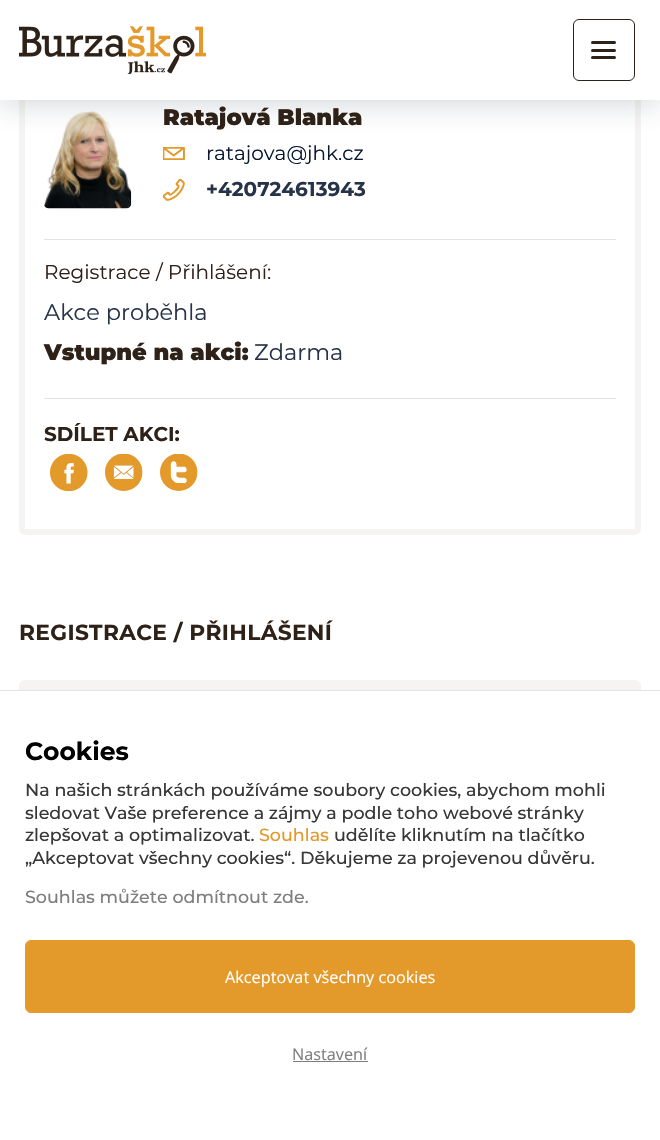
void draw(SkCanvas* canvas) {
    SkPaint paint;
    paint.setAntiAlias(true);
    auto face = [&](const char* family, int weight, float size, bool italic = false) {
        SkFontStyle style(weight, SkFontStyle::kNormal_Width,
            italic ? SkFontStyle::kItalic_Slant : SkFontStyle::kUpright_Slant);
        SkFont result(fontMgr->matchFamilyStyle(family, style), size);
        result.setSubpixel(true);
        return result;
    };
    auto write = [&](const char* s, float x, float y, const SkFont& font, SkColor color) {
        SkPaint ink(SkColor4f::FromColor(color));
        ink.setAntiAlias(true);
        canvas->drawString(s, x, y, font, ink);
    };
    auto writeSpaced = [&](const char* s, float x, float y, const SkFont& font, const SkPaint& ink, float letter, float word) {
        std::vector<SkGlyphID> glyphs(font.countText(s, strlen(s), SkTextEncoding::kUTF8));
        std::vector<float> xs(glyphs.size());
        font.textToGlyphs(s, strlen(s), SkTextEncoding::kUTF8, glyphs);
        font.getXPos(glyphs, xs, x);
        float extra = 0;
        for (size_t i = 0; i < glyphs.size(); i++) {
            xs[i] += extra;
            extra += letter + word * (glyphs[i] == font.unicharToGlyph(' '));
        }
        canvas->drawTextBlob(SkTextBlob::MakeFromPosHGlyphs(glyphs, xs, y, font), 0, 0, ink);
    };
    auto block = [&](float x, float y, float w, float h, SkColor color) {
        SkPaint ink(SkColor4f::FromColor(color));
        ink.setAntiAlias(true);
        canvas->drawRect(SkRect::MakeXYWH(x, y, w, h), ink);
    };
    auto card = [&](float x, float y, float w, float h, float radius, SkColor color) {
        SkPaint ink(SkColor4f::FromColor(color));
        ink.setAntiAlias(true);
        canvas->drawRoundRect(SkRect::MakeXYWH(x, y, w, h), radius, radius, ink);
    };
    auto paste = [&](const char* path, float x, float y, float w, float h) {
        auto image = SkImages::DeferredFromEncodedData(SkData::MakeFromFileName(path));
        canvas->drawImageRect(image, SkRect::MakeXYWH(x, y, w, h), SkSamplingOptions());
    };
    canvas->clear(SK_ColorWHITE);
    paint.setStyle(SkPaint::kStroke_Style);
    paint.setStrokeWidth(6);
    paint.setColor(SkColorSetRGB(246, 244, 242));
    canvas->drawRoundRect(SkRect::MakeXYWH(22, -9, 616, 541), 3, 3, paint);
    paste("pic2.png", 44, 111, 88, 98);
    paste("pic3.png", 163, 147, 22, 13);
    paint.setStyle(SkPaint::kFill_Style);
    paint.setColor(SkColorSetARGB(51, 17, 39, 55));
    paint.setMaskFilter(SkMaskFilter::MakeBlur(kNormal_SkBlurStyle, 15));
    canvas->drawRect(SkRect::MakeXYWH(0, 3, 660, 100), paint);
    paint.setMaskFilter(nullptr);
    block(0, 0, 660, 100, SK_ColorWHITE);
    paste("pic1.png", 19, 26, 187, 48);
    paint.setStyle(SkPaint::kStroke_Style);
    paint.setStrokeWidth(1);
    paint.setColor(SkColorSetRGB(45, 33, 24));
    canvas->drawRoundRect(SkRect::MakeXYWH(573.5f, 19.5f, 61, 61), 5.5f, 5.5f, paint);
    card(591, 41, 25, 3, 1.5f, SkColorSetRGB(45, 33, 24));
    card(591, 49, 25, 3, 1.5f, SkColorSetRGB(45, 33, 24));
    card(591, 56, 25, 3, 1.5f, SkColorSetRGB(45, 33, 24));
    auto kFont1 = face("Montserrat", 900, 22.5f);
    write("Ratajová Blanka", 163, 125, kFont1, SkColorSetRGB(45, 33, 24));
    auto kFont2 = face("Montserrat", 400, 20);
    write("ratajova@jhk.cz", 206, 160, kFont2, SkColorSetRGB(9, 24, 48));
    paste("pic4.png", 163, 179, 22, 22);
    auto kFont3 = face("Montserrat", 700, 20);
    write("+420724613943", 206, 196, kFont3, SkColorSetRGB(38, 51, 72));
    block(44, 239, 572, 1, SkColorSetRGB(231, 226, 222));
    write("Registrace / Přihlášení:", 44, 279, kFont2, SkColorSetRGB(45, 33, 24));
    auto kFont4 = face("Montserrat", 400, 22.5f);
    write("Akce proběhla", 44, 320, kFont4, SkColorSetRGB(38, 51, 72));
    write("Vstupné na akci:", 44, 360, kFont1, SkColorSetRGB(45, 33, 24));
    write("Zdarma", 254, 360, kFont4, SkColorSetRGB(38, 51, 72));
    block(44, 398, 572, 1, SkColorSetRGB(231, 226, 222));
    write("SDÍLET AKCI:", 44, 441, kFont3, SkColorSetRGB(45, 33, 24));
    paste("pic5.png", 50, 454, 38, 37);
    paste("pic6.png", 105, 454, 38, 37);
    paste("pic7.png", 160, 454, 38, 37);
    auto kFont5 = face("Montserrat", 700, 21.75f);
    paint.setStyle(SkPaint::kFill_Style);
    writeSpaced("REGISTRACE / PŘIHLÁŠENÍ", 19, 640, kFont5, paint, 0.35f, 0);
    card(19, 680, 622, 145, 6, SkColorSetRGB(246, 244, 242));
    block(19, 691, 622, 134, SK_ColorWHITE);
    block(0, 690, 660, 1, SkColorSetRGB(227, 227, 227));
    auto kFont6 = face("Montserrat", 700, 25);
    write("Cookies", 25, 760, kFont6, SK_ColorBLACK);
    auto kFont7 = face("Montserrat", 500, 17.5f);
    write("Na našich stránkách používáme soubory cookies, abychom mohli", 25, 796, kFont7, SkColorSetRGB(55, 55, 55));
    write("sledovat Vaše preference a zájmy a podle toho webové stránky", 25, 819, kFont7, SkColorSetRGB(55, 55, 55));
    write("zlepšovat a optimalizovat.", 25, 841, kFont7, SkColorSetRGB(55, 55, 55));
    write("Souhlas", 259, 841, kFont7, SkColorSetRGB(228, 153, 43));
    write("udělíte kliknutím na tlačítko", 334, 841, kFont7, SkColorSetRGB(55, 55, 55));
    write("„Akceptovat všechny cookies“. Děkujeme za projevenou důvěru.", 25, 864, kFont7, SkColorSetRGB(55, 55, 55));
    write("Souhlas můžete odmítnout zde.", 25, 903, kFont7, SkColorSetRGB(126, 126, 126));
    paint.setColor(SkColorSetRGB(228, 153, 43));
    canvas->drawRoundRect(SkRect::MakeXYWH(25.5f, 940.5f, 609, 72), 5.5f, 5.5f, paint);
    paint.setStyle(SkPaint::kStroke_Style);
    canvas->drawRoundRect(SkRect::MakeXYWH(25.5f, 940.5f, 609, 72), 5.5f, 5.5f, paint);
    auto kFont8 = face("Open Sans", 400, 16.25f);
    write("Akceptovat všechny cookies", 225, 983, kFont8, SK_ColorWHITE);
    write("Nastavení", 292, 1060, kFont8, SkColorSetRGB(126, 126, 126));
    block(293, 1061, 75, 1, SkColorSetRGB(126, 126, 126));
}
